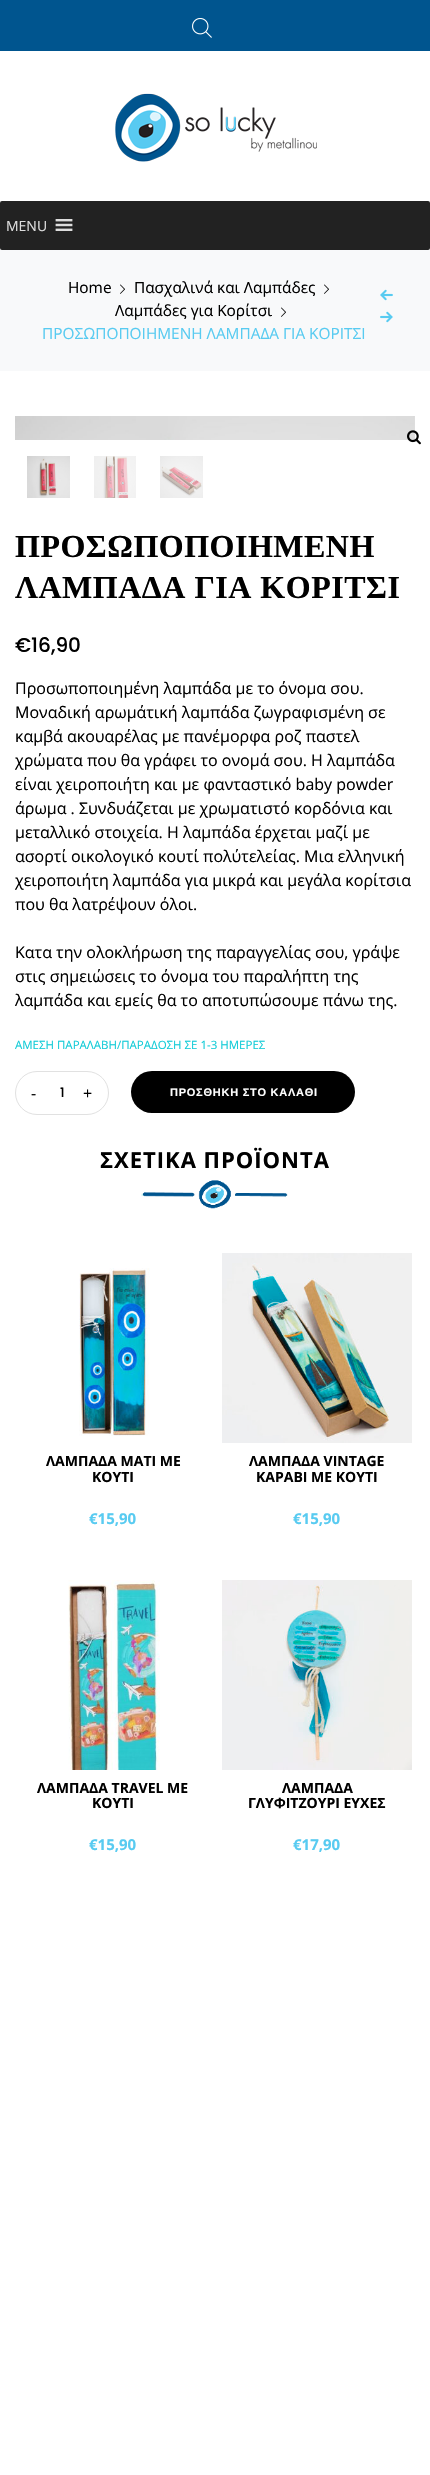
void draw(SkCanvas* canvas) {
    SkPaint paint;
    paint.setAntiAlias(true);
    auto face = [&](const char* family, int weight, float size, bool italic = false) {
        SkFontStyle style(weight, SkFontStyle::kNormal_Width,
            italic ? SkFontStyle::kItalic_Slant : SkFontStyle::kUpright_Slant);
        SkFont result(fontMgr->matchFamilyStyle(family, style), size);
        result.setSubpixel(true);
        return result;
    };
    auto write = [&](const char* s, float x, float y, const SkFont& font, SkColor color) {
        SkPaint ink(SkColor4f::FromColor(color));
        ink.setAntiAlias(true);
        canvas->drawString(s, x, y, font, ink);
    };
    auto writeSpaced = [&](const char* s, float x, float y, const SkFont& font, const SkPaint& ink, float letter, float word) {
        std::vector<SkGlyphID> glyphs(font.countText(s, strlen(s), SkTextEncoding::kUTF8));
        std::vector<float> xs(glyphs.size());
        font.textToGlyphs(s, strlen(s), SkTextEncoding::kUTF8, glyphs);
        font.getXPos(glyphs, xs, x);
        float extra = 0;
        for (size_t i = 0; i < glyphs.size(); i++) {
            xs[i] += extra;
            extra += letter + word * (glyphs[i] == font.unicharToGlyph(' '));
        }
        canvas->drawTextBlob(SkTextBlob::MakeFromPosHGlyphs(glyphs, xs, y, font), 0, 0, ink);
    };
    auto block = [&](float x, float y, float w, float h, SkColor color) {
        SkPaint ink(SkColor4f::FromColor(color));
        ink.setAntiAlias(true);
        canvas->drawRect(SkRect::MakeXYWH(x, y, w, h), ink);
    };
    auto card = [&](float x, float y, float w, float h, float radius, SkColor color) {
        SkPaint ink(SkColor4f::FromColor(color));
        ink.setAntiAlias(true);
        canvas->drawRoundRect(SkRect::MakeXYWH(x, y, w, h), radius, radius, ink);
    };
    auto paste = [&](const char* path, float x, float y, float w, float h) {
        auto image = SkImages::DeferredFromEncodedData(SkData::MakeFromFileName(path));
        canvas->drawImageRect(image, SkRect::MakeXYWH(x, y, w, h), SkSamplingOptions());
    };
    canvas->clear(SK_ColorWHITE);
    block(0, 0, 430, 51, SkColorSetRGB(0, 85, 143));
    paste("pic1.png", 192, 18, 20, 20);
    paste("pic2.png", 115, 93, 202, 69);
    card(0, 201, 430, 49, 2, SkColorSetRGB(34, 34, 34));
    auto kFont1 = face("Open Sans", 400, 14);
    write("MENU", 6, 231, kFont1, SkColorSetRGB(221, 221, 221));
    paste("pic3.png", 55, 219, 18, 12);
    block(0, 250, 430, 121, SkColorSetRGB(248, 249, 250));
    auto kFont2 = face("Open Sans", 400, 15.4f);
    write("Home", 68, 293, kFont2, SK_ColorBLACK);
    paste("pic4.png", 120, 284, 5, 10);
    write("Πασχαλινά και Λαμπάδες", 134, 293, kFont2, SK_ColorBLACK);
    paste("pic4.png", 324, 284, 5, 10);
    write("Λαμπάδες για Κορίτσι", 115, 316, kFont2, SK_ColorBLACK);
    paste("pic4.png", 281, 307, 5, 10);
    write("ΠΡΟΣΩΠΟΠΟΙΗΜΕΝΗ ΛΑΜΠΑΔΑ ΓΙΑ ΚΟΡΙΤΣΙ", 42, 339, kFont2, SkColorSetRGB(88, 203, 241));
    paste("pic5.png", 380, 289, 13, 12);
    paste("pic6.png", 380, 311, 13, 12);
    paste("pic7.png", 15, 416, 400, 24);
    paste("pic8.png", 407, 430, 14, 15);
    paste("pic9.png", 27, 456, 43, 42);
    paste("pic10.png", 94, 456, 42, 42);
    paste("pic11.png", 160, 456, 43, 42);
    auto kFont3 = face("Liberation Serif", 700, 32);
    paint.setColor(SK_ColorBLACK);
    writeSpaced("ΠΡΟΣΩΠΟΠΟΙΗΜΕΝΗ", 15, 557, kFont3, paint, 0.5f, 0);
    writeSpaced("ΛΑΜΠΑΔΑ ΓΙΑ ΚΟΡΙΤΣΙ", 15, 598, kFont3, paint, 0.5f, 0);
    auto kFont4 = face("Poppins", 500, 20);
    write("€16,90", 15, 652, kFont4, SK_ColorBLACK);
    auto kFont5 = face("Open Sans", 400, 16);
    write("Προσωποποιημένη λαμπάδα με το όνομα σου.", 15, 694, kFont5, SK_ColorBLACK);
    write("Μοναδική αρωμάτική λαμπάδα ζωγραφισμένη σε", 15, 718, kFont5, SK_ColorBLACK);
    write("καμβά ακουαρέλας με πανέμορφα ροζ παστελ", 15, 742, kFont5, SK_ColorBLACK);
    write("χρώματα που θα γράφει το ονομά σου. Η λαμπάδα", 15, 766, kFont5, SK_ColorBLACK);
    write("είναι χειροποιήτη και με φανταστικό baby powder", 15, 790, kFont5, SK_ColorBLACK);
    write("άρωμα . Συνδυάζεται με χρωματιστό κορδόνια και", 15, 814, kFont5, SK_ColorBLACK);
    write("μεταλλικό στοιχεία. Η λαμπάδα έρχεται μαζί με", 15, 838, kFont5, SK_ColorBLACK);
    write("ασορτί οικολογικό κουτί πολύτελείας. Μια ελληνική", 15, 862, kFont5, SK_ColorBLACK);
    write("χειροποιήτη λαμπάδα για μικρά και μεγάλα κορίτσια", 15, 886, kFont5, SK_ColorBLACK);
    write("που θα λατρέψουν όλοι.", 15, 910, kFont5, SK_ColorBLACK);
    write("Κατα την ολοκλήρωση της παραγγελίας σου, γράψε", 15, 958, kFont5, SK_ColorBLACK);
    write("στις σημειώσεις το όνομα του παραλήπτη της", 15, 982, kFont5, SK_ColorBLACK);
    write("λαμπάδα και εμείς θα το αποτυπώσουμε πάνω της.", 15, 1006, kFont5, SK_ColorBLACK);
    auto kFont6 = face("Open Sans", 400, 11.5f);
    write("ΑΜΕΣΗ ΠΑΡΑΛΑΒΗ/ΠΑΡΑΔΟΣΗ ΣΕ 1-3 ΗΜΕΡΕΣ", 15, 1049, kFont6, SkColorSetRGB(17, 203, 215));
    paint.setStyle(SkPaint::kStroke_Style);
    paint.setStrokeWidth(1);
    paint.setColor(SkColorSetRGB(225, 225, 225));
    canvas->drawRoundRect(SkRect::MakeXYWH(15.5f, 1071.5f, 93, 43), 21.5f, 21.5f, paint);
    auto kFont7 = face("Poppins", 500, 13);
    write("1", 60, 1097, kFont7, SK_ColorBLACK);
    write("-", 31, 1099, kFont5, SK_ColorBLACK);
    write("+", 83, 1099, kFont5, SK_ColorBLACK);
    card(131, 1071, 224, 42, 21, SK_ColorBLACK);
    auto kFont8 = face("Liberation Sans", 700, 11);
    paint.setStyle(SkPaint::kFill_Style);
    paint.setColor(SK_ColorWHITE);
    writeSpaced("ΠΡΟΣΘΗΚΗ ΣΤΟ ΚΑΛΑΘΙ", 170, 1096, kFont8, paint, 0.75f, 0);
    auto kFont9 = face("Open Sans", 700, 22);
    paint.setColor(SK_ColorBLACK);
    writeSpaced("ΣΧΕΤΙΚΑ ΠΡΟΪΟΝΤΑ", 100, 1168, kFont9, paint, 1, 0);
    paste("pic12.png", 141, 1180, 147, 29);
    paste("pic13.png", 79, 1268, 71, 168);
    auto kFont10 = face("Open Sans", 700, 14);
    write("ΛΑΜΠΑΔΑ ΜΑΤΙ ΜΕ", 46, 1466, kFont10, SK_ColorBLACK);
    write("ΚΟΥΤΙ", 92, 1482, kFont10, SK_ColorBLACK);
    auto kFont11 = face("Open Sans", 700, 15);
    write("€15,90", 89, 1524, kFont11, SkColorSetRGB(88, 203, 241));
    paste("pic14.png", 222, 1253, 190, 190);
    write("ΛΑΜΠΑΔΑ VINTAGE", 249, 1466, kFont10, SK_ColorBLACK);
    write("ΚΑΡΑΒΙ ΜΕ ΚΟΥΤΙ", 256, 1482, kFont10, SK_ColorBLACK);
    write("€15,90", 293, 1524, kFont11, SkColorSetRGB(88, 203, 241));
    paste("pic15.png", 68, 1580, 92, 190);
    write("ΛΑΜΠΑΔΑ TRAVEL ΜΕ", 37, 1793, kFont10, SK_ColorBLACK);
    write("ΚΟΥΤΙ", 92, 1808, kFont10, SK_ColorBLACK);
    write("€15,90", 89, 1850, kFont11, SkColorSetRGB(88, 203, 241));
    paste("pic16.png", 222, 1580, 190, 190);
    write("ΛΑΜΠΑΔΑ", 282, 1793, kFont10, SK_ColorBLACK);
    write("ΓΛΥΦΙΤΖΟΥΡΙ ΕΥΧΕΣ", 248, 1808, kFont10, SK_ColorBLACK);
    write("€17,90", 293, 1850, kFont11, SkColorSetRGB(88, 203, 241));
}
